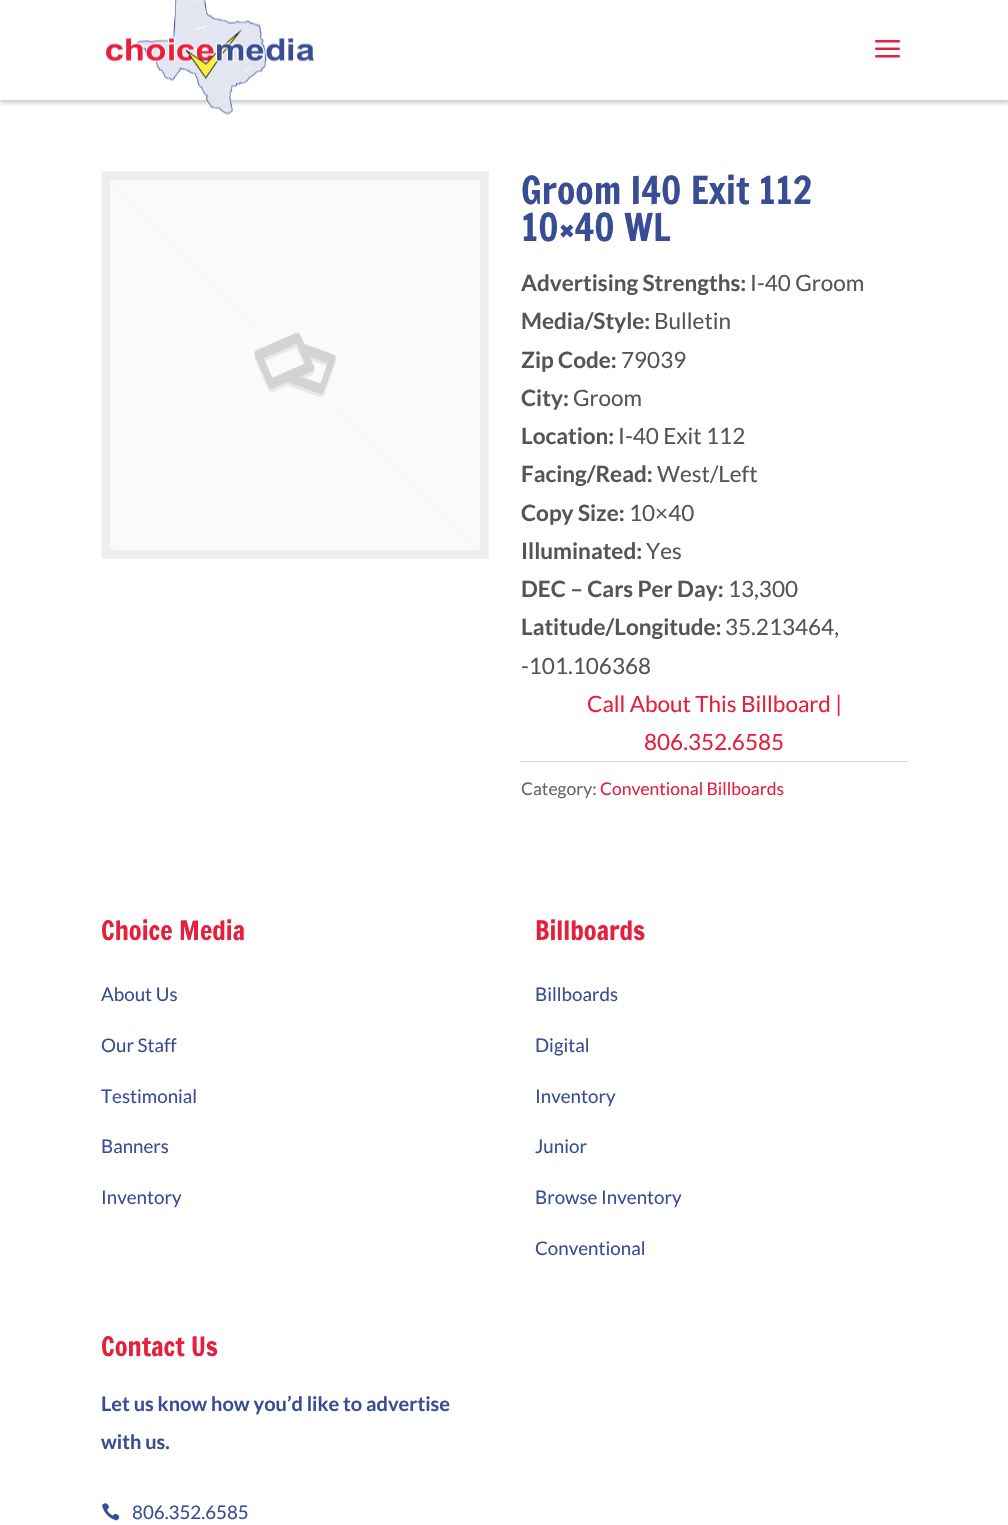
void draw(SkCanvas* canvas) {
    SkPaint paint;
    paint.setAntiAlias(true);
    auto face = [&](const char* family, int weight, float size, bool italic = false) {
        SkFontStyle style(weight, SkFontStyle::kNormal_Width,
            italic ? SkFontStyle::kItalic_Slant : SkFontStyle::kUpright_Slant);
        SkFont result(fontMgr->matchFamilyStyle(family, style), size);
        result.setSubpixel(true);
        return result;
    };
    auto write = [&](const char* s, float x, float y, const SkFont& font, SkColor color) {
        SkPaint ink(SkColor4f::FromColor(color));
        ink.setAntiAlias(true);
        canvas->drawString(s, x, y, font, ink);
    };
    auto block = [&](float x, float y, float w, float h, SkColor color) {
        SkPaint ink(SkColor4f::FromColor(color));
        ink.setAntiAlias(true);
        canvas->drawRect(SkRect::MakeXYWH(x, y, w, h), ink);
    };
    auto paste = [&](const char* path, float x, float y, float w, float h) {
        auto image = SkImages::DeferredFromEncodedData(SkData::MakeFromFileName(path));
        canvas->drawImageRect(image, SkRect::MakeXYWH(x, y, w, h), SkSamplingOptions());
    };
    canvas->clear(SK_ColorWHITE);
    canvas->save();
    canvas->clipRect(SkRect::MakeXYWH(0, 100, 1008, 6));
    paint.setColor(SkColorSetARGB(51, 0, 0, 0));
    paint.setMaskFilter(SkMaskFilter::MakeBlur(kNormal_SkBlurStyle, 2));
    canvas->drawRect(SkRect::MakeXYWH(0, 3, 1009, 100), paint);
    paint.setMaskFilter(nullptr);
    canvas->restore();
    paste("pic1.png", 105, 0, 209, 115);
    paste("pic2.png", 875, 40, 25, 18);
    paste("pic3.png", 101, 171, 388, 388);
    auto kFont1 = face("Francois One", 400, 37.5f);
    write("Groom I40 Exit 112", 521, 204, kFont1, SkColorSetRGB(57, 77, 148));
    write("10×40 WL", 521, 241, kFont1, SkColorSetRGB(57, 77, 148));
    auto kFont2 = face("Lato", 700, 22.5f);
    write("Advertising Strengths:", 521, 291, kFont2, SkColorSetRGB(85, 85, 85));
    auto kFont3 = face("Lato", 400, 22.5f);
    write("I-40 Groom", 750, 291, kFont3, SkColorSetRGB(85, 85, 85));
    write("Media/Style:", 521, 329, kFont2, SkColorSetRGB(85, 85, 85));
    write("Bulletin", 654, 329, kFont3, SkColorSetRGB(85, 85, 85));
    write("Zip Code:", 521, 368, kFont2, SkColorSetRGB(85, 85, 85));
    write("79039", 621, 368, kFont3, SkColorSetRGB(85, 85, 85));
    write("City:", 521, 406, kFont2, SkColorSetRGB(85, 85, 85));
    write("Groom", 573, 406, kFont3, SkColorSetRGB(85, 85, 85));
    write("Location:", 521, 444, kFont2, SkColorSetRGB(85, 85, 85));
    write("I-40 Exit 112", 618, 444, kFont3, SkColorSetRGB(85, 85, 85));
    write("Facing/Read:", 521, 482, kFont2, SkColorSetRGB(85, 85, 85));
    write("West/Left", 657, 482, kFont3, SkColorSetRGB(85, 85, 85));
    write("Copy Size:", 521, 521, kFont2, SkColorSetRGB(85, 85, 85));
    write("10×40", 629, 521, kFont3, SkColorSetRGB(85, 85, 85));
    write("Illuminated:", 521, 559, kFont2, SkColorSetRGB(85, 85, 85));
    write("Yes", 646, 559, kFont3, SkColorSetRGB(85, 85, 85));
    write("DEC – Cars Per Day:", 521, 597, kFont2, SkColorSetRGB(85, 85, 85));
    write("13,300", 728, 597, kFont3, SkColorSetRGB(85, 85, 85));
    write("Latitude/Longitude:", 521, 635, kFont2, SkColorSetRGB(85, 85, 85));
    write("35.213464,", 725, 635, kFont3, SkColorSetRGB(85, 85, 85));
    write("-101.106368", 521, 674, kFont3, SkColorSetRGB(85, 85, 85));
    write("Call About This Billboard |", 587, 712, kFont3, SkColorSetRGB(230, 32, 60));
    write("806.352.6585", 644, 750, kFont3, SkColorSetRGB(230, 32, 60));
    block(520, 761, 388, 1, SkColorSetRGB(218, 218, 218));
    auto kFont4 = face("Lato", 400, 17.5f);
    write("Category:", 521, 795, kFont4, SkColorSetRGB(102, 102, 102));
    write("Conventional Billboards", 600, 795, kFont4, SkColorSetRGB(230, 32, 60));
    auto kFont5 = face("Francois One", 400, 26.25f);
    write("Choice Media", 101, 940, kFont5, SkColorSetRGB(230, 32, 60));
    auto kFont6 = face("Lato", 400, 18.75f);
    write("About Us", 101, 1001, kFont6, SkColorSetRGB(57, 77, 148));
    write("Our Staff", 101, 1052, kFont6, SkColorSetRGB(57, 77, 148));
    write("Testimonial", 101, 1103, kFont6, SkColorSetRGB(57, 77, 148));
    write("Banners", 101, 1153, kFont6, SkColorSetRGB(57, 77, 148));
    write("Inventory", 101, 1204, kFont6, SkColorSetRGB(57, 77, 148));
    write("Billboards", 535, 940, kFont5, SkColorSetRGB(230, 32, 60));
    write("Billboards", 535, 1001, kFont6, SkColorSetRGB(57, 77, 148));
    write("Digital", 535, 1052, kFont6, SkColorSetRGB(57, 77, 148));
    write("Inventory", 535, 1103, kFont6, SkColorSetRGB(57, 77, 148));
    write("Junior", 535, 1153, kFont6, SkColorSetRGB(57, 77, 148));
    write("Browse Inventory", 535, 1204, kFont6, SkColorSetRGB(57, 77, 148));
    write("Conventional", 535, 1255, kFont6, SkColorSetRGB(57, 77, 148));
    write("Contact Us", 101, 1356, kFont5, SkColorSetRGB(230, 32, 60));
    auto kFont7 = face("Lato", 700, 20);
    write("Let us know how you’d like to advertise", 101, 1411, kFont7, SkColorSetRGB(57, 77, 148));
    write("with us.", 101, 1449, kFont7, SkColorSetRGB(57, 77, 148));
    paste("pic4.png", 102, 1503, 18, 18);
    write("806.352.6585", 132, 1519, kFont6, SkColorSetRGB(57, 77, 148));
}
